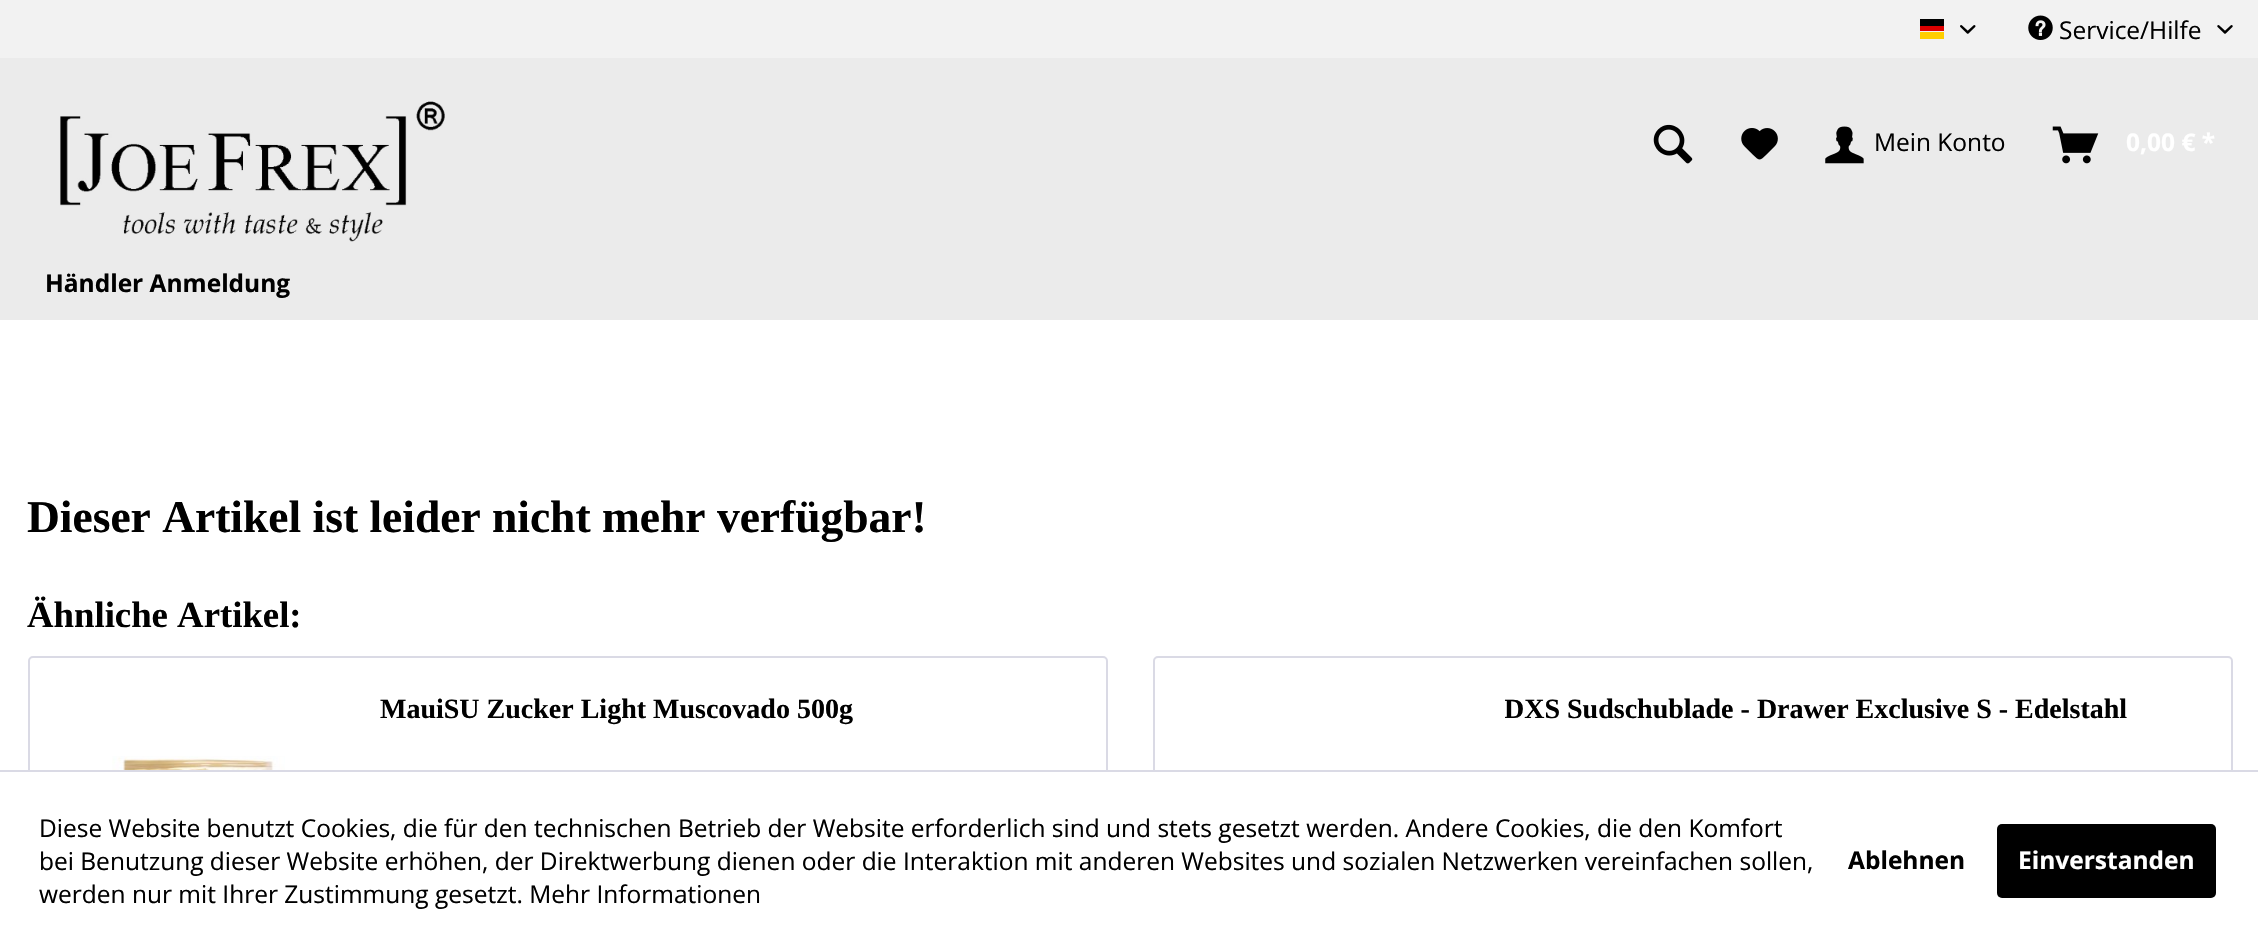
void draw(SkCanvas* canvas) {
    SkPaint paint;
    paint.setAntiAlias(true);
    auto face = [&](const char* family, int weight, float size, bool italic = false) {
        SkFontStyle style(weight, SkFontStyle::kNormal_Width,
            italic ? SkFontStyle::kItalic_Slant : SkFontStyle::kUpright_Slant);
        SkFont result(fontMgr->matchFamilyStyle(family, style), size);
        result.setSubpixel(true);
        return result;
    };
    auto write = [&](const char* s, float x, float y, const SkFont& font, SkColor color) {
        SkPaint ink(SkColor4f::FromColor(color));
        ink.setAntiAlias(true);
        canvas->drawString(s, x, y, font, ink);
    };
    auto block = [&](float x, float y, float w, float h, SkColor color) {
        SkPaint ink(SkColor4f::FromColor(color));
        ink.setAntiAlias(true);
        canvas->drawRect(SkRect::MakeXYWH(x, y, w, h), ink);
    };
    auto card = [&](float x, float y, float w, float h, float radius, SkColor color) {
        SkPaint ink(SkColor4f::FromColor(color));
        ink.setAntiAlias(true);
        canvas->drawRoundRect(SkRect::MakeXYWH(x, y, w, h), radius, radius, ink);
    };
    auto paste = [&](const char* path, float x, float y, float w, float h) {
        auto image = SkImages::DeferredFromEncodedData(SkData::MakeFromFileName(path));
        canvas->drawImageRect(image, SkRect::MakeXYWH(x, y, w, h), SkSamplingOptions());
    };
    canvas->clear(SK_ColorWHITE);
    block(0, 58, 2258, 262, SkColorSetRGB(235, 235, 235));
    block(0, 0, 2258, 58, SkColorSetRGB(242, 242, 242));
    block(1920, 19, 24, 7, SK_ColorBLACK);
    block(1920, 26, 24, 5, SkColorSetRGB(221, 0, 0));
    block(1920, 32, 24, 7, SkColorSetRGB(255, 206, 0));
    paste("pic1.png", 1960, 25, 16, 9);
    paste("pic2.png", 2028, 15, 25, 25);
    auto kFont1 = face("Open Sans", 400, 24.5f);
    write("Service/Hilfe", 2059, 39, kFont1, SK_ColorBLACK);
    paste("pic3.png", 2217, 25, 16, 9);
    paste("pic4.png", 1653, 124, 40, 40);
    paste("pic5.png", 1741, 128, 37, 32);
    paste("pic6.png", 1825, 126, 39, 38);
    write("Mein Konto", 1874, 151, kFont1, SK_ColorBLACK);
    paste("pic7.png", 2052, 126, 47, 38);
    auto kFont2 = face("Open Sans", 700, 24.5f);
    write("0,00 € *", 2126, 151, kFont2, SK_ColorWHITE);
    paste("pic8.png", 60, 101, 385, 141);
    write("Händler Anmeldung", 45, 292, kFont2, SK_ColorBLACK);
    auto kFont3 = face("Liberation Serif", 700, 45.5f);
    write("Dieser Artikel ist leider nicht mehr verfügbar!", 27, 532, kFont3, SK_ColorBLACK);
    auto kFont4 = face("Liberation Serif", 700, 36.75f);
    write("Ähnliche Artikel:", 27, 627, kFont4, SK_ColorBLACK);
    paint.setStyle(SkPaint::kStroke_Style);
    paint.setStrokeWidth(2);
    paint.setColor(SkColorSetRGB(218, 218, 229));
    canvas->drawRoundRect(SkRect::MakeXYWH(29, 657, 1078, 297), 4, 4, paint);
    auto kFont5 = face("Liberation Serif", 700, 28);
    write("MauiSU Zucker Light Muscovado 500g", 380, 718, kFont5, SK_ColorBLACK);
    paste("pic9.png", 112, 756, 173, 14);
    canvas->drawRoundRect(SkRect::MakeXYWH(1154, 657, 1078, 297), 4, 4, paint);
    canvas->save();
    canvas->clipRect(SkRect::MakeXYWH(1505, 693, 709, 70));
    write("DXS Sudschublade - Drawer Exclusive S - Edelstahl", 1504, 718, kFont5, SK_ColorBLACK);
    canvas->restore();
    block(28, 772, 2205, 176, SK_ColorWHITE);
    block(0, 770, 2258, 2, SkColorSetRGB(218, 218, 229));
    write("Diese Website benutzt Cookies, die für den technischen Betrieb der Website erforderlich sind und stets gesetzt werden. Andere Cookies, die den Komfort", 39, 837, kFont1, SK_ColorBLACK);
    write("bei Benutzung dieser Website erhöhen, der Direktwerbung dienen oder die Interaktion mit anderen Websites und sozialen Netzwerken vereinfachen sollen,", 39, 870, kFont1, SK_ColorBLACK);
    write("werden nur mit Ihrer Zustimmung gesetzt. Mehr Informationen", 39, 903, kFont1, SK_ColorBLACK);
    write("Ablehnen", 1848, 869, kFont2, SK_ColorBLACK);
    card(1997, 824, 219, 74, 5, SK_ColorBLACK);
    write("Einverstanden", 2018, 869, kFont2, SK_ColorWHITE);
}
